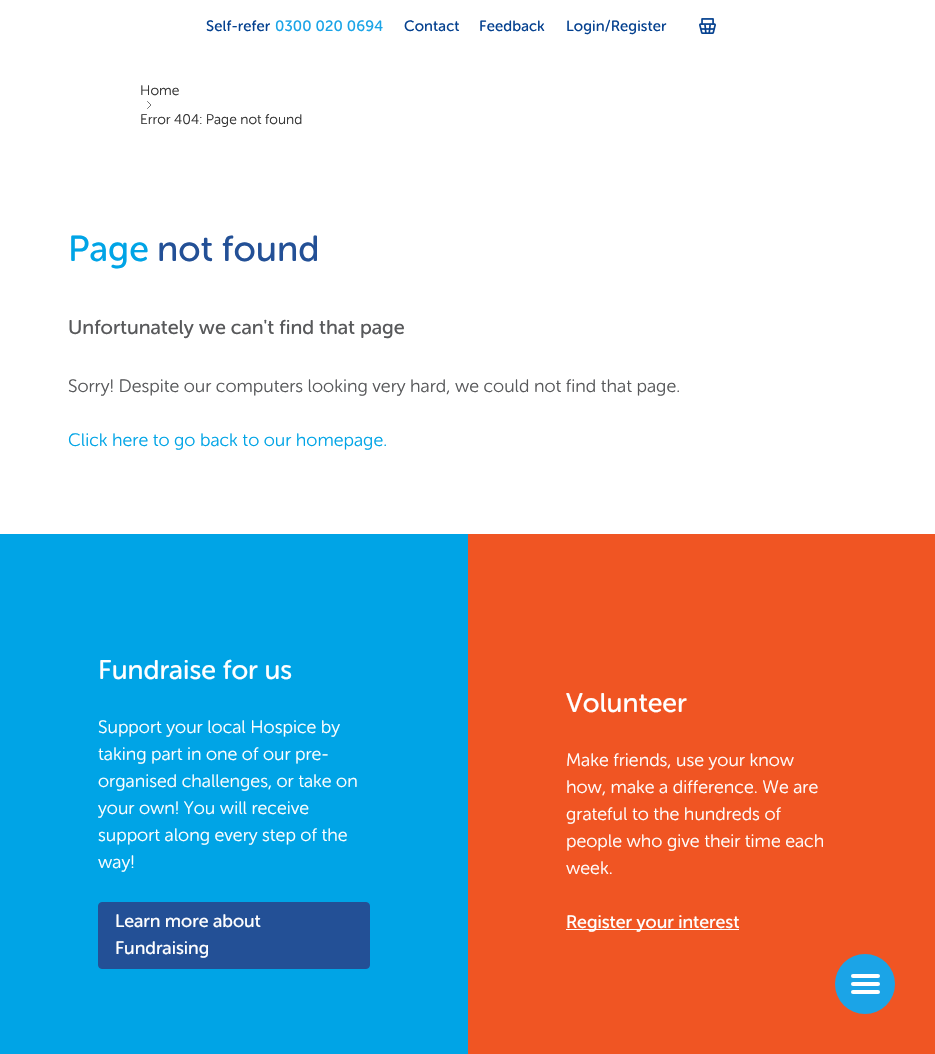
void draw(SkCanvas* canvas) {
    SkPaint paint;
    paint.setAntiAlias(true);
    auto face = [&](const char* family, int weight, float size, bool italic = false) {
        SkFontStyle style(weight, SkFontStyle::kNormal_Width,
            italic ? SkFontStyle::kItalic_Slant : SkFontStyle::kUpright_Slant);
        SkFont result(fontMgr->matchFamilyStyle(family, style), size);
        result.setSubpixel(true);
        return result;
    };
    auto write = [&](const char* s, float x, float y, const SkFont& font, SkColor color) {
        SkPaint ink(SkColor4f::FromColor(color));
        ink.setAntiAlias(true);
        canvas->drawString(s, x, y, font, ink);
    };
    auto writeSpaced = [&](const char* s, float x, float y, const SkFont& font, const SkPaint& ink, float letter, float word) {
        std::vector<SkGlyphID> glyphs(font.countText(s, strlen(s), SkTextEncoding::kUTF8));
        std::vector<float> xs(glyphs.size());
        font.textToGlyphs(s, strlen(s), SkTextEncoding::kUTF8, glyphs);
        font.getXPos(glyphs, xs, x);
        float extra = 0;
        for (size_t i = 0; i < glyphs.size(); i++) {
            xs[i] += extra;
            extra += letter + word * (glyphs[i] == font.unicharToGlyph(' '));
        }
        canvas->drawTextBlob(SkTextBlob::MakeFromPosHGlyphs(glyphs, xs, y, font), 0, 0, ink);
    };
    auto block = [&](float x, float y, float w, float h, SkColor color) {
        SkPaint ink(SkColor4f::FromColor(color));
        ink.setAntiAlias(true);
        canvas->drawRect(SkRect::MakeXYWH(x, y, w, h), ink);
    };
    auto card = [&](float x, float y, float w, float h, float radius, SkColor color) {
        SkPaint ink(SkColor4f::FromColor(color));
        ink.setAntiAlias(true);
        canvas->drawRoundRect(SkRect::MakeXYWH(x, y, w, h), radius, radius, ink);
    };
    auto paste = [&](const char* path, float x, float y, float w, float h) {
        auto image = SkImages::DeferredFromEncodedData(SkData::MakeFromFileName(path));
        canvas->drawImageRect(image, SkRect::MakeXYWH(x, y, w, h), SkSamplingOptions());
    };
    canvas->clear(SK_ColorWHITE);
    auto kFont1 = face("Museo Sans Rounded", 400, 15);
    paint.setColor(SkColorSetRGB(6, 66, 144));
    writeSpaced("Self-refer", 206, 31, kFont1, paint, 0.1f, 0);
    paint.setColor(SkColorSetRGB(27, 164, 231));
    writeSpaced("0300 020 0694", 275, 31, kFont1, paint, 0.1f, 0);
    paint.setColor(SkColorSetRGB(6, 66, 144));
    writeSpaced("Contact", 404, 31, kFont1, paint, 0.1f, 0);
    writeSpaced("Feedback", 479, 31, kFont1, paint, 0.1f, 0);
    writeSpaced("Login/Register", 566, 31, kFont1, paint, 0.1f, 0);
    paste("pic1.png", 699, 18, 17, 16);
    auto kFont2 = face("Museo Sans Rounded", 300, 14);
    write("Home", 140, 95, kFont2, SkColorSetRGB(51, 51, 51));
    paint.setStyle(SkPaint::kStroke_Style);
    paint.setStrokeWidth(0.7f);
    paint.setStrokeCap(SkPaint::kRound_Cap);
    paint.setStrokeJoin(SkPaint::kRound_Join);
    paint.setColor(SkColorSetRGB(51, 51, 51));
    canvas->drawPath(SkPathBuilder().moveTo(147.5f, 101.5f).lineTo(151, 105).lineTo(147.5f, 108.5f).detach(), paint);
    write("Error 404: Page not found", 140, 124, kFont2, SkColorSetRGB(51, 51, 51));
    auto kFont3 = face("Museo Sans Rounded", 400, 36);
    write("Page", 68, 261, kFont3, SkColorSetRGB(0, 164, 230));
    write("not found", 157, 261, kFont3, SkColorSetRGB(35, 80, 150));
    auto kFont4 = face("Museo Sans Rounded", 400, 20);
    write("Unfortunately we can't find that page", 68, 334, kFont4, SkColorSetRGB(88, 89, 91));
    auto kFont5 = face("Museo Sans Rounded", 300, 18);
    write("Sorry! Despite our computers looking very hard, we could not find that page.", 68, 392, kFont5, SkColorSetRGB(88, 89, 91));
    write("Click here to go back to our homepage.", 68, 446, kFont5, SkColorSetRGB(0, 164, 230));
    block(0, 534, 468, 520, SkColorSetRGB(0, 164, 230));
    auto kFont6 = face("Museo Sans Rounded", 400, 27);
    write("Fundraise for us", 98, 679, kFont6, SK_ColorWHITE);
    write("Support your local Hospice by", 98, 733, kFont5, SK_ColorWHITE);
    write("taking part in one of our pre-", 98, 760, kFont5, SK_ColorWHITE);
    write("organised challenges, or take on", 98, 787, kFont5, SK_ColorWHITE);
    write("your own! You will receive", 98, 814, kFont5, SK_ColorWHITE);
    write("support along every step of the", 98, 841, kFont5, SK_ColorWHITE);
    write("way!", 98, 868, kFont5, SK_ColorWHITE);
    paint.setStyle(SkPaint::kFill_Style);
    paint.setColor(SkColorSetRGB(35, 80, 150));
    canvas->drawRoundRect(SkRect::MakeXYWH(98.5f, 902.5f, 271, 66), 3.5f, 3.5f, paint);
    paint.setStyle(SkPaint::kStroke_Style);
    paint.setStrokeWidth(1);
    paint.setStrokeCap(SkPaint::kButt_Cap);
    paint.setStrokeJoin(SkPaint::kMiter_Join);
    canvas->drawRoundRect(SkRect::MakeXYWH(98.5f, 902.5f, 271, 66), 3.5f, 3.5f, paint);
    auto kFont7 = face("Museo Sans Rounded", 400, 18);
    write("Learn more about", 115, 927, kFont7, SK_ColorWHITE);
    write("Fundraising", 115, 954, kFont7, SK_ColorWHITE);
    block(468, 534, 467, 520, SkColorSetRGB(240, 85, 35));
    write("Volunteer", 566, 712, kFont6, SK_ColorWHITE);
    write("Make friends, use your know", 566, 766, kFont5, SK_ColorWHITE);
    write("how, make a difference. We are", 566, 793, kFont5, SK_ColorWHITE);
    write("grateful to the hundreds of", 566, 820, kFont5, SK_ColorWHITE);
    write("people who give their time each", 566, 847, kFont5, SK_ColorWHITE);
    write("week.", 566, 874, kFont5, SK_ColorWHITE);
    block(566, 929, 173, 1, SK_ColorWHITE);
    write("Register your interest", 566, 928, kFont7, SK_ColorWHITE);
    paint.setStyle(SkPaint::kFill_Style);
    paint.setColor(SkColorSetRGB(27, 164, 231));
    canvas->drawCircle(865, 984, 30, paint);
    card(851, 982, 29, 4, 2, SK_ColorWHITE);
    card(851, 974, 29, 4, 2, SK_ColorWHITE);
    card(851, 990, 29, 4, 2, SK_ColorWHITE);
}
